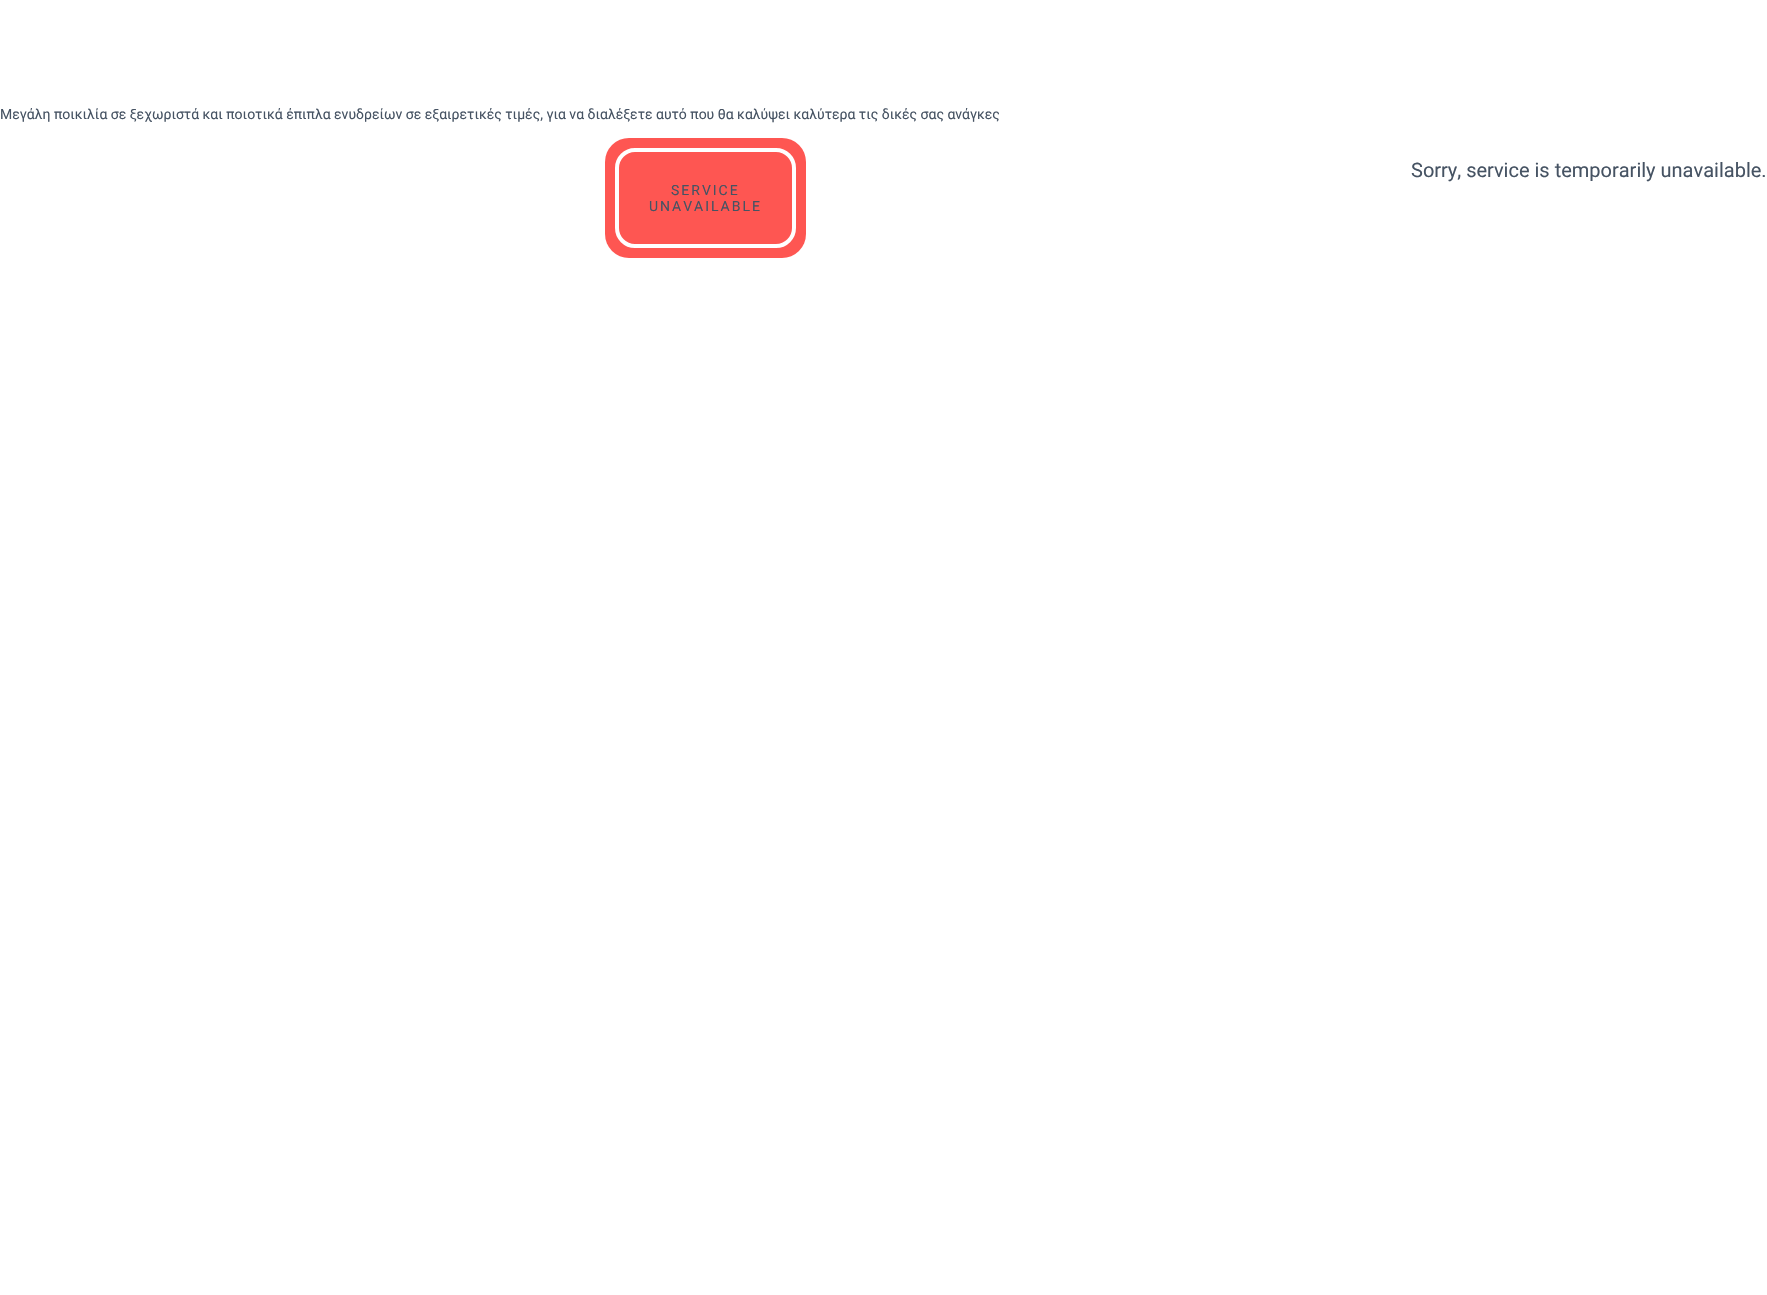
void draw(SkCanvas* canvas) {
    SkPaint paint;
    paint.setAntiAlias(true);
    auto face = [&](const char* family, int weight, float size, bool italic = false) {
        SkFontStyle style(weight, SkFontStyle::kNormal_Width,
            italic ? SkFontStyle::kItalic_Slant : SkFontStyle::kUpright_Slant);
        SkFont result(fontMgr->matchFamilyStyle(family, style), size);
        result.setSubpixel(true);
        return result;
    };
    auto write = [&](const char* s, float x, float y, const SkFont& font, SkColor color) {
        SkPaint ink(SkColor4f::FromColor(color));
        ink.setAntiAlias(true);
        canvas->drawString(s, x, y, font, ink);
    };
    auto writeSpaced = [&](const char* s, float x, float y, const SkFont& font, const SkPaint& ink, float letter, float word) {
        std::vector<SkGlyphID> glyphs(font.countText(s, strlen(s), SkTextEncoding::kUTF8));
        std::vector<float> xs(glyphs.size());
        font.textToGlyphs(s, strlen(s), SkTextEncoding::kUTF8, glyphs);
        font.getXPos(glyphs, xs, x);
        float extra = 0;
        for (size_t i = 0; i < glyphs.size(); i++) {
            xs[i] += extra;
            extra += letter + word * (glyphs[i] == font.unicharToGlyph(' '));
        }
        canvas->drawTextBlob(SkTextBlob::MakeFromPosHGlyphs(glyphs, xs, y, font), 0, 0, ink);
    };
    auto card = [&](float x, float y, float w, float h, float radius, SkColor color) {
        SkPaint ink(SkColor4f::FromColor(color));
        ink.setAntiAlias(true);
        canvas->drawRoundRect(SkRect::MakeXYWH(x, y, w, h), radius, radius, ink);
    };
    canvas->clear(SK_ColorWHITE);
    auto kFont1 = face("Roboto", 400, 14);
    write("Μεγάλη ποικιλία σε ξεχωριστά και ποιοτικά έπιπλα ενυδρείων σε εξαιρετικές τιμές, για να διαλέξετε αυτό που θα καλύψει καλύτερα τις δικές σας ανάγκες", 0, 119, kFont1, SkColorSetRGB(70, 83, 99));
    auto kFont2 = face("Roboto", 400, 20);
    write("Sorry, service is temporarily unavailable.", 1411, 177, kFont2, SkColorSetRGB(70, 83, 99));
    card(605, 138, 201, 120, 24, SkColorSetRGB(254, 86, 82));
    paint.setStyle(SkPaint::kStroke_Style);
    paint.setStrokeWidth(4);
    paint.setColor(SK_ColorWHITE);
    canvas->drawRoundRect(SkRect::MakeXYWH(617, 150, 177, 96), 18, 18, paint);
    paint.setStyle(SkPaint::kFill_Style);
    paint.setColor(SkColorSetRGB(70, 83, 99));
    writeSpaced("SERVICE", 671, 195, kFont1, paint, 2, 0);
    writeSpaced("UNAVAILABLE", 649, 211, kFont1, paint, 2, 0);
}
